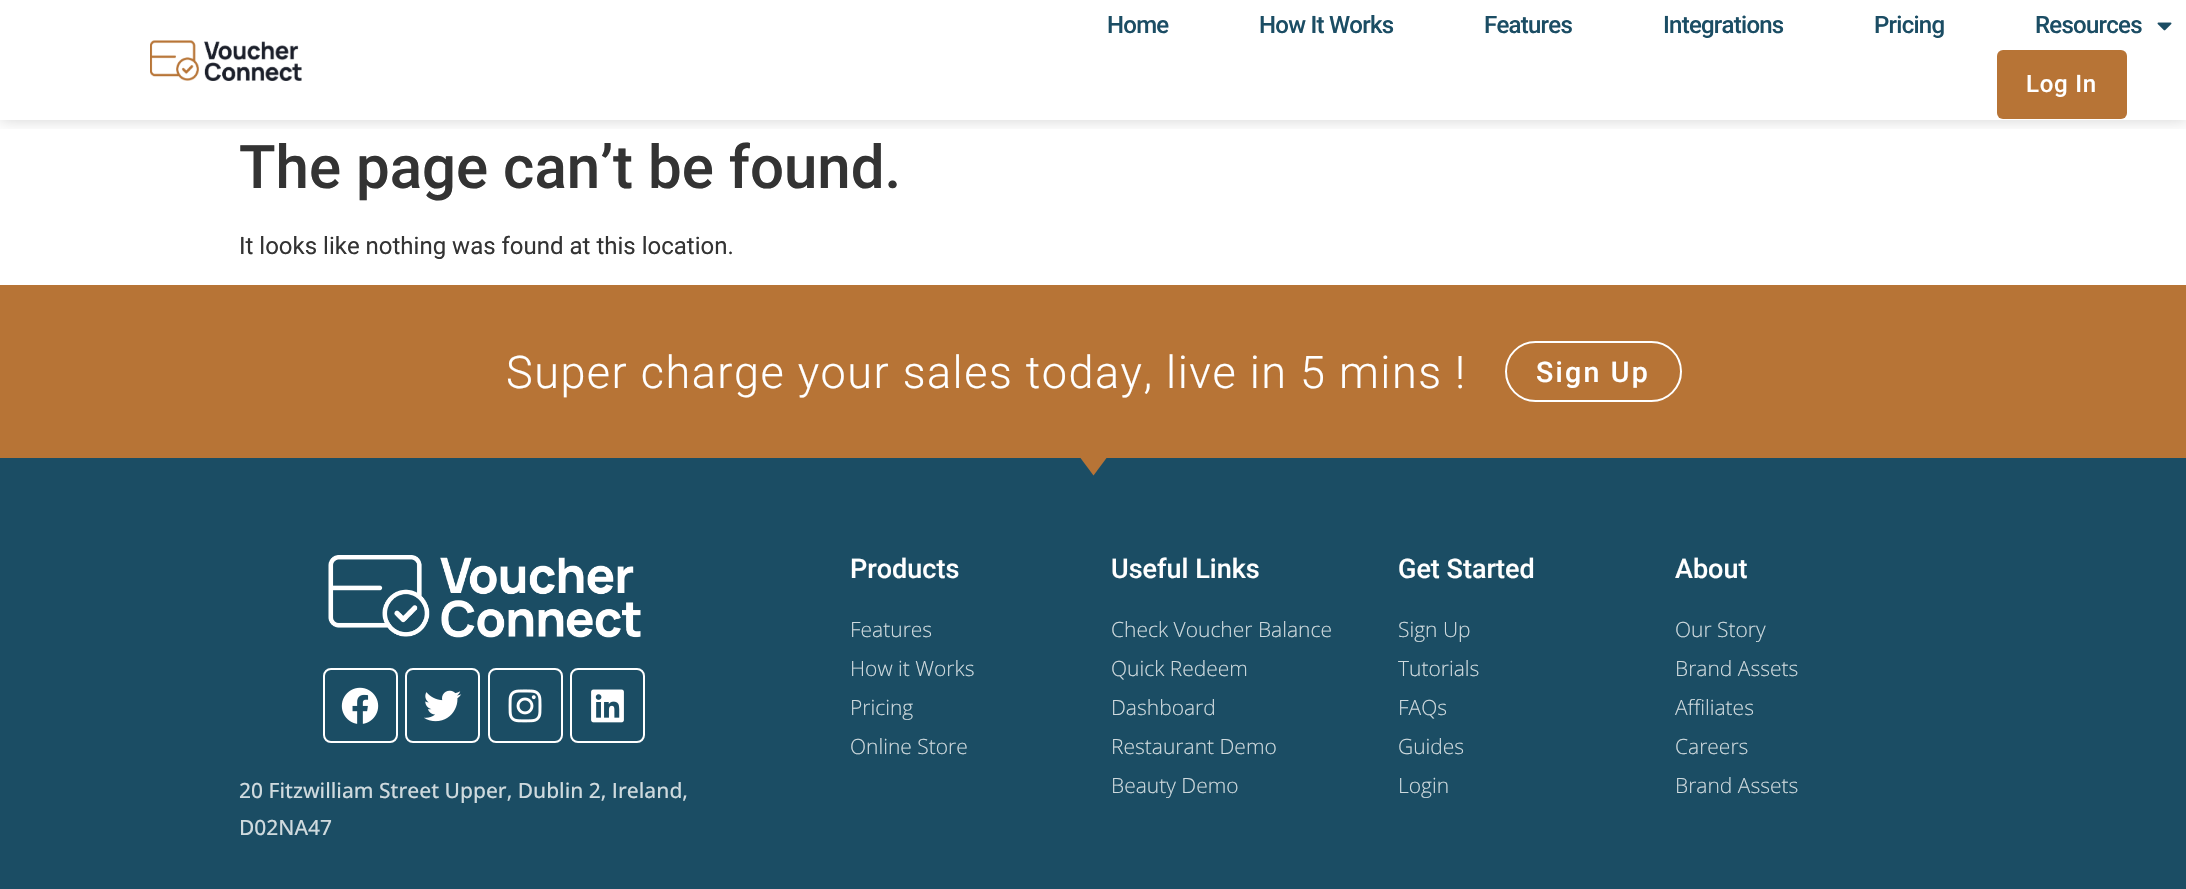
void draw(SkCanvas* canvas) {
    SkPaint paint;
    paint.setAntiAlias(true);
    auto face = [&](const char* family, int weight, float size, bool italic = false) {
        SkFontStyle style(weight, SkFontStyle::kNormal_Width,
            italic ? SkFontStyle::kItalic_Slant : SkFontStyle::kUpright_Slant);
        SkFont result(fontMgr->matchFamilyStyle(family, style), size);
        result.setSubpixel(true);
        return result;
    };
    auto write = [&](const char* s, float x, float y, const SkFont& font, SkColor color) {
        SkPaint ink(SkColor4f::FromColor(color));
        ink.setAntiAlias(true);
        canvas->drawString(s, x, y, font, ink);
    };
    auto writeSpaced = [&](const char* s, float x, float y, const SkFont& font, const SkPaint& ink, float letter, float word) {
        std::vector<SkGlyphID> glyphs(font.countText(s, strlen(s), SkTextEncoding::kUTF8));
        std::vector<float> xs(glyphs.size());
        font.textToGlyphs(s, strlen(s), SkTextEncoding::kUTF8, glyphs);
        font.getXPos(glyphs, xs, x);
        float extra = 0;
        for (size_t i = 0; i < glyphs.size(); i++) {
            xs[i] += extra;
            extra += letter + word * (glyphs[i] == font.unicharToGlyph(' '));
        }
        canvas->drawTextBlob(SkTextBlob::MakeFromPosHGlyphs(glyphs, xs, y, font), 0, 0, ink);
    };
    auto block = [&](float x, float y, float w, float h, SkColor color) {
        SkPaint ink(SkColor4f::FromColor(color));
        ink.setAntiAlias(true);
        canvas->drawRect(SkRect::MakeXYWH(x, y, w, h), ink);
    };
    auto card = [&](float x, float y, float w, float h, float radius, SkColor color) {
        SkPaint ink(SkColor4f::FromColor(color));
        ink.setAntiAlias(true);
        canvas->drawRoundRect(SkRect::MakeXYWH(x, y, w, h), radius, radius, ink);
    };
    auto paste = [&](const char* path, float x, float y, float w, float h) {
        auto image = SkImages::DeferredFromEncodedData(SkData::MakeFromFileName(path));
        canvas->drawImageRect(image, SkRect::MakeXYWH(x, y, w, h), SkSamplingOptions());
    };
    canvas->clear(SK_ColorWHITE);
    canvas->save();
    canvas->clipRect(SkRect::MakeXYWH(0, 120, 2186, 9));
    paint.setColor(SkColorSetARGB(43, 0, 0, 0));
    paint.setMaskFilter(SkMaskFilter::MakeBlur(kNormal_SkBlurStyle, 7.5f));
    canvas->drawRect(SkRect::MakeXYWH(0, 0, 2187, 120), paint);
    paint.setMaskFilter(nullptr);
    canvas->restore();
    paste("pic1.png", 150, 40, 152, 41);
    auto kFont1 = face("Roboto", 500, 24);
    paint.setColor(SkColorSetRGB(27, 77, 100));
    writeSpaced("Home", 1107, 33, kFont1, paint, -0.75f, 0);
    writeSpaced("How It Works", 1259, 33, kFont1, paint, -0.75f, 0);
    writeSpaced("Features", 1484, 33, kFont1, paint, -0.75f, 0);
    writeSpaced("Integrations", 1663, 33, kFont1, paint, -0.75f, 0);
    writeSpaced("Pricing", 1874, 33, kFont1, paint, -0.75f, 0);
    writeSpaced("Resources", 2035, 33, kFont1, paint, -0.75f, 0);
    paste("pic2.png", 2157, 22, 15, 9);
    card(1997, 50, 130, 69, 6, SkColorSetRGB(183, 116, 54));
    paint.setColor(SK_ColorWHITE);
    writeSpaced("Log In", 2026, 92, kFont1, paint, 0.75f, 0);
    auto kFont2 = face("Roboto", 500, 60);
    write("The page can’t be found.", 239, 188, kFont2, SkColorSetRGB(51, 51, 51));
    auto kFont3 = face("Roboto", 400, 24);
    write("It looks like nothing was found at this location.", 239, 254, kFont3, SkColorSetRGB(51, 51, 51));
    block(0, 285, 2186, 173, SkColorSetRGB(183, 116, 54));
    auto kFont4 = face("Roboto", 300, 45);
    writeSpaced("Super charge your sales today, live in 5 mins !", 506, 388, kFont4, paint, 1.5f, 0);
    paint.setStyle(SkPaint::kStroke_Style);
    paint.setStrokeWidth(2);
    canvas->drawRoundRect(SkRect::MakeXYWH(1506, 342, 175, 59), 29.5f, 29.5f, paint);
    auto kFont5 = face("Roboto", 500, 28.5f);
    paint.setStyle(SkPaint::kFill_Style);
    writeSpaced("Sign Up", 1536, 382, kFont5, paint, 2.25f, 0);
    block(0, 458, 2186, 431, SkColorSetRGB(27, 77, 100));
    paint.setColor(SkColorSetRGB(183, 116, 54));
    canvas->drawPath(SkPathBuilder().moveTo(1093.5f, 475.5f).lineTo(1079, 456).lineTo(1108, 456).close().detach(), paint);
    auto kFont6 = face("Roboto", 500, 27);
    write("Products", 850, 578, kFont6, SK_ColorWHITE);
    auto kFont7 = face("Open Sans", 300, 21);
    write("Features", 850, 637, kFont7, SkColorSetRGB(207, 218, 222));
    write("How it Works", 850, 676, kFont7, SkColorSetRGB(207, 218, 222));
    write("Pricing", 850, 715, kFont7, SkColorSetRGB(207, 218, 222));
    write("Online Store", 850, 754, kFont7, SkColorSetRGB(207, 218, 222));
    write("Useful Links", 1111, 578, kFont6, SK_ColorWHITE);
    write("Check Voucher Balance", 1111, 637, kFont7, SkColorSetRGB(207, 218, 222));
    write("Quick Redeem", 1111, 676, kFont7, SkColorSetRGB(207, 218, 222));
    write("Dashboard", 1111, 715, kFont7, SkColorSetRGB(207, 218, 222));
    write("Restaurant Demo", 1111, 754, kFont7, SkColorSetRGB(207, 218, 222));
    write("Beauty Demo", 1111, 793, kFont7, SkColorSetRGB(207, 218, 222));
    write("Get Started", 1398, 578, kFont6, SK_ColorWHITE);
    write("Sign Up", 1398, 637, kFont7, SkColorSetRGB(207, 218, 222));
    write("Tutorials", 1398, 676, kFont7, SkColorSetRGB(207, 218, 222));
    write("FAQs", 1398, 715, kFont7, SkColorSetRGB(207, 218, 222));
    write("Guides", 1398, 754, kFont7, SkColorSetRGB(207, 218, 222));
    write("Login", 1398, 793, kFont7, SkColorSetRGB(207, 218, 222));
    write("About", 1675, 578, kFont6, SK_ColorWHITE);
    write("Our Story", 1675, 637, kFont7, SkColorSetRGB(207, 218, 222));
    write("Brand Assets", 1675, 676, kFont7, SkColorSetRGB(207, 218, 222));
    write("Affiliates", 1675, 715, kFont7, SkColorSetRGB(207, 218, 222));
    write("Careers", 1675, 754, kFont7, SkColorSetRGB(207, 218, 222));
    write("Brand Assets", 1675, 793, kFont7, SkColorSetRGB(207, 218, 222));
    paste("pic3.png", 328, 555, 313, 83);
    paint.setStyle(SkPaint::kStroke_Style);
    paint.setColor(SK_ColorWHITE);
    canvas->drawRoundRect(SkRect::MakeXYWH(324, 669, 73, 73), 7, 7, paint);
    paste("pic4.png", 341, 687, 38, 37);
    canvas->drawRoundRect(SkRect::MakeXYWH(406, 669, 73, 73), 7, 7, paint);
    paste("pic5.png", 424, 690, 38, 32);
    canvas->drawRoundRect(SkRect::MakeXYWH(489, 669, 73, 73), 7, 7, paint);
    paste("pic6.png", 508, 689, 34, 34);
    canvas->drawRoundRect(SkRect::MakeXYWH(571, 669, 73, 73), 7, 7, paint);
    paste("pic7.png", 591, 689, 33, 34);
    auto kFont8 = face("Open Sans", 500, 21);
    write("20 Fitzwilliam Street Upper, Dublin 2, Ireland,", 239, 798, kFont8, SkColorSetRGB(207, 218, 222));
    write("D02NA47", 239, 835, kFont8, SkColorSetRGB(207, 218, 222));
}
